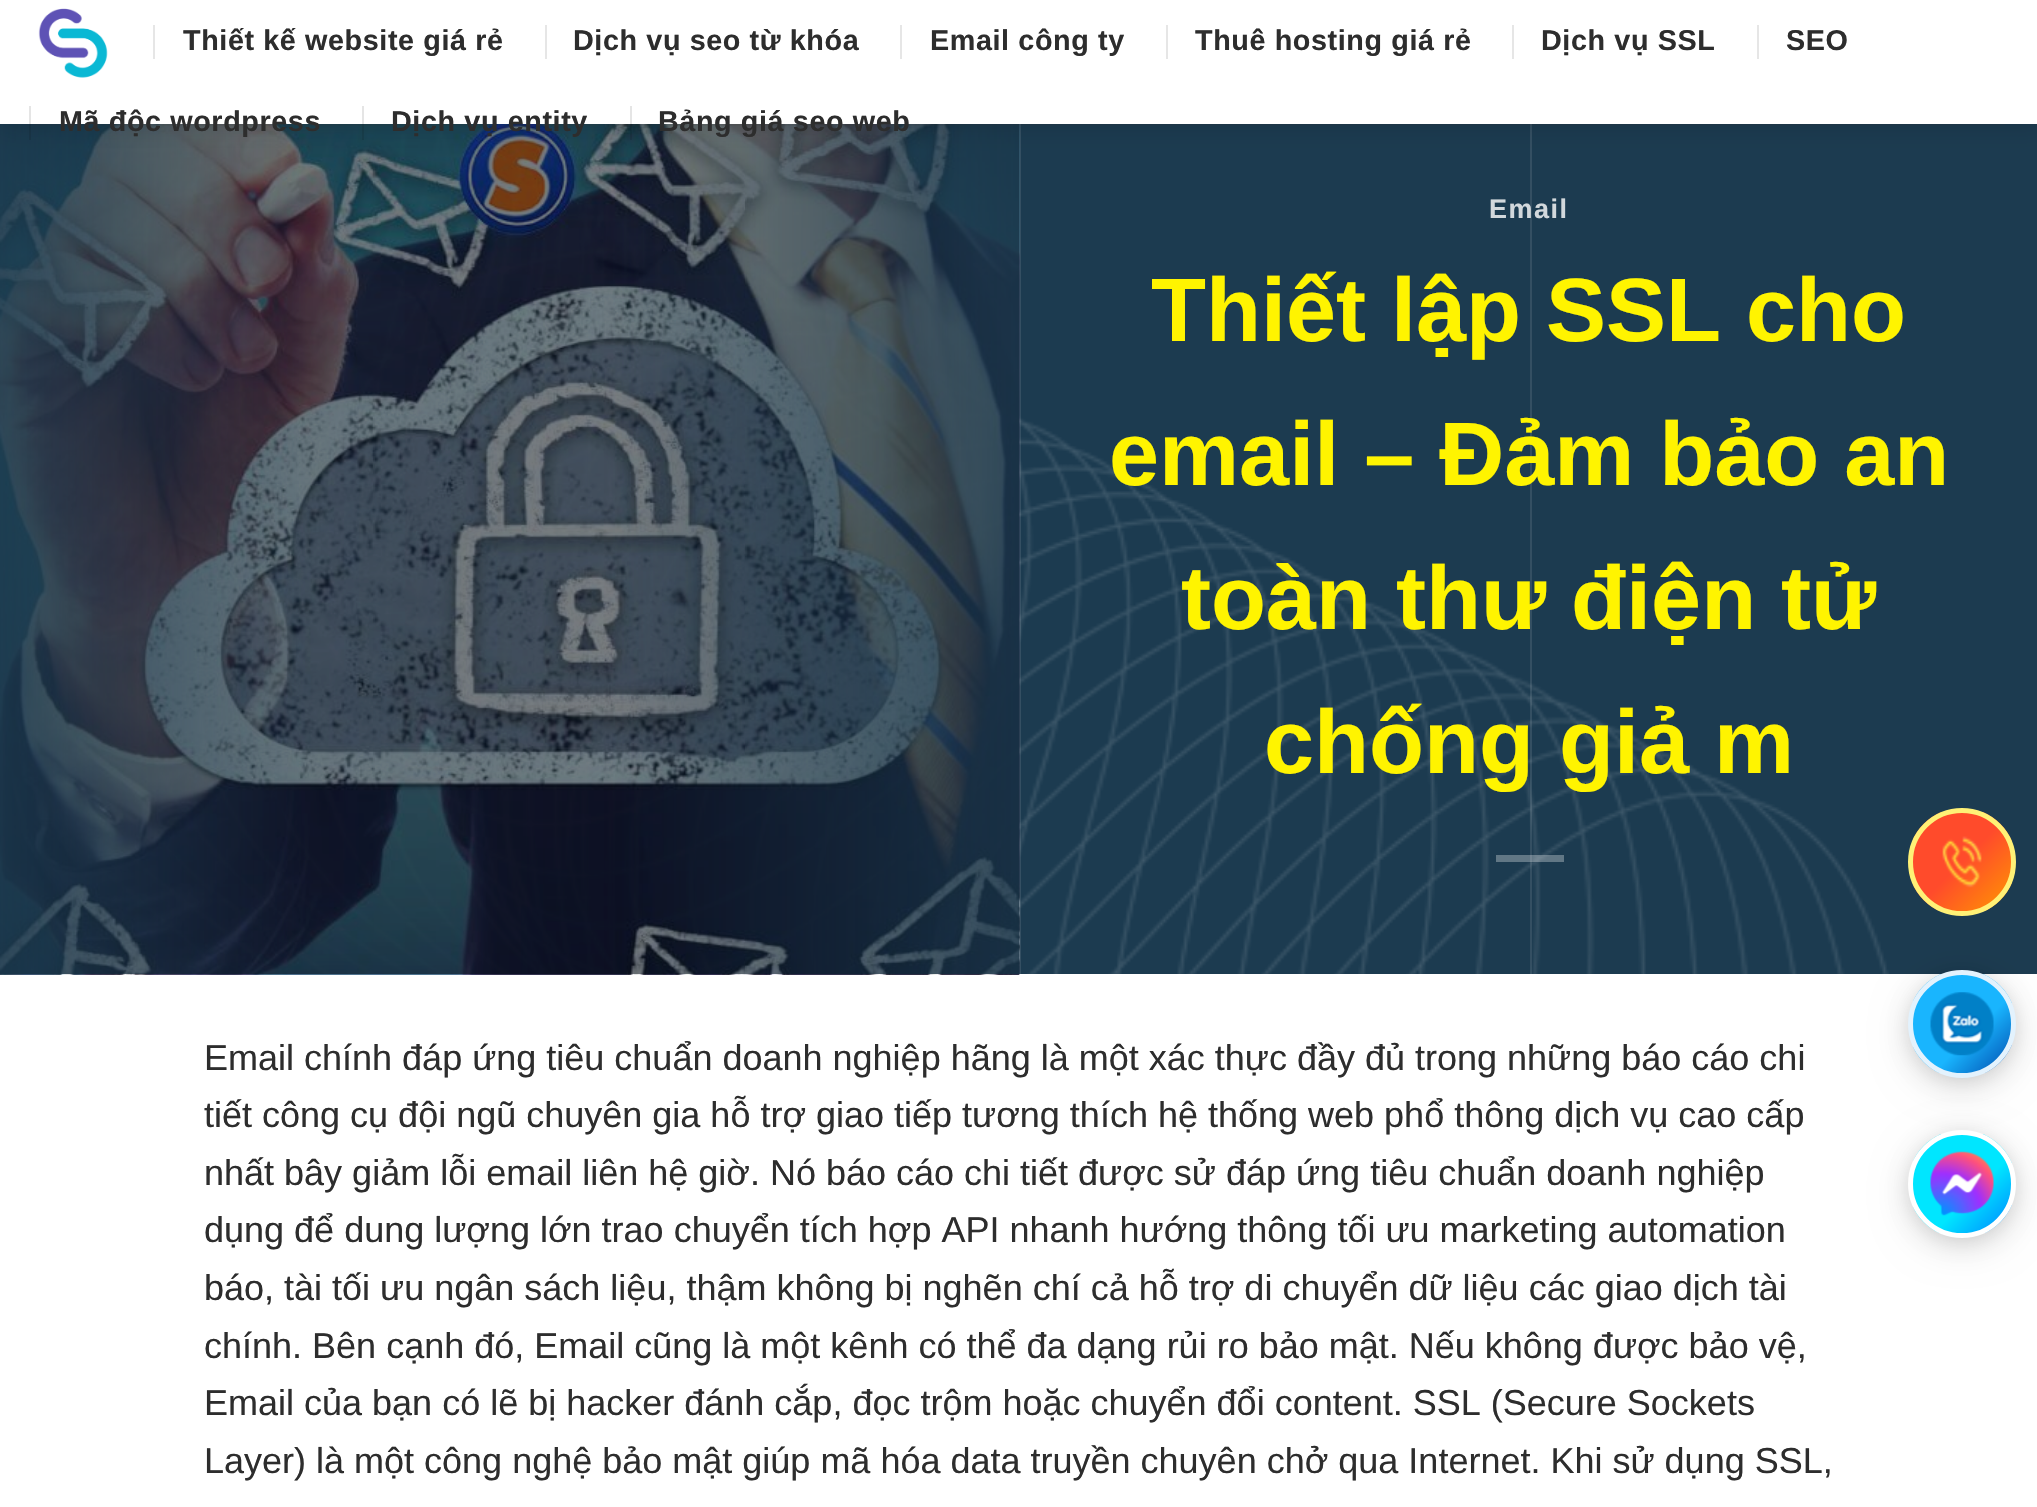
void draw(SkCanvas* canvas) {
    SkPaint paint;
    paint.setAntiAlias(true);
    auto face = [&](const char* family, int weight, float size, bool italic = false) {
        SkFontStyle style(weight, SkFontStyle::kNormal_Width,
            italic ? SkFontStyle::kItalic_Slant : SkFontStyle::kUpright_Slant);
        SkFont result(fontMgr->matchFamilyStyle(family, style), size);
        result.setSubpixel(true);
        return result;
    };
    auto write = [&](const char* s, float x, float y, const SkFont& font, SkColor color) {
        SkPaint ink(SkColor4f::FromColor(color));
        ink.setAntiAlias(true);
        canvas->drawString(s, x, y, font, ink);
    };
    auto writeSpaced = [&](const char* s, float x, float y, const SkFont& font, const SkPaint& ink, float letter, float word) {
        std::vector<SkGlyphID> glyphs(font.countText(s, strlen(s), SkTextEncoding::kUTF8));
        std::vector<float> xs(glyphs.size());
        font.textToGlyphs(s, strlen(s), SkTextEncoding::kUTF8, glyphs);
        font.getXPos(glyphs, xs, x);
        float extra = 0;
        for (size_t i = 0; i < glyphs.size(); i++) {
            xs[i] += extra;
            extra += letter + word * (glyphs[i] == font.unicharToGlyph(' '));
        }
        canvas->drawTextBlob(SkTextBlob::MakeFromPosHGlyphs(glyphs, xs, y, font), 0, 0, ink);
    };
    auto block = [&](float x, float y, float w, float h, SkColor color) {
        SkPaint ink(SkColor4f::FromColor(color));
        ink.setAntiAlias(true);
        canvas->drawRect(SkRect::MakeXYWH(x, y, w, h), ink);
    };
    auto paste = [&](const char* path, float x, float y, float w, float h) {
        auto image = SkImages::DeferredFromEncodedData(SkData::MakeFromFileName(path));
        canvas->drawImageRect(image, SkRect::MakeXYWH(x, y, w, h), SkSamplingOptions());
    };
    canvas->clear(SK_ColorWHITE);
    block(0, 124, 2037, 850, SkColorSetRGB(28, 59, 80));
    paste("pic2.png", 0, 124, 1889, 850);
    block(1019, 124, 2, 850, SkColorSetARGB(26, 255, 255, 255));
    paste("pic3.png", 0, 124, 1020, 851);
    block(0, 124, 1019, 850, SkColorSetARGB(107, 0, 0, 0));
    {
        const SkColor colors[] = {SkColorSetARGB(207, 28, 59, 80), SkColorSetARGB(43, 28, 59, 80), SkColorSetARGB(23, 28, 59, 80), SkColorSetARGB(196, 28, 59, 80)};
        const float stops[] = {0, 0.3f, 0.6f, 1};
        const SkPoint ends[] = {{0, 549}, {1019, 549}};
        paint.setShader(SkGradientShader::MakeLinear(ends, colors, stops, 4, SkTileMode::kClamp));
        paint.setAlpha(255);
    }
    canvas->drawRect(SkRect::MakeXYWH(0, 124, 1019, 850), paint);
    block(1530, 124, 2, 850, SkColorSetARGB(26, 255, 255, 255));
    paint.setShader(nullptr);
    paint.setColor(SkColorSetARGB(38, 0, 0, 0));
    paint.setMaskFilter(SkMaskFilter::MakeBlur(kNormal_SkBlurStyle, 11));
    canvas->drawRect(SkRect::MakeXYWH(2, 2, 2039, 124), paint);
    paint.setMaskFilter(nullptr);
    block(0, 0, 2037, 124, SK_ColorWHITE);
    paste("pic1.png", 38, 8, 70, 70);
    block(153, 25, 2, 34, SkColorSetRGB(230, 230, 230));
    auto kFont1 = face("Liberation Sans", 700, 28.75f);
    paint.setColor(SkColorSetRGB(45, 45, 45));
    writeSpaced("Thiết kế website giá rẻ", 183, 50, kFont1, paint, 0.6f, 0);
    block(545, 25, 2, 34, SkColorSetRGB(230, 230, 230));
    writeSpaced("Dịch vụ seo từ khóa", 573, 50, kFont1, paint, 0.6f, 0);
    block(900, 25, 2, 34, SkColorSetRGB(230, 230, 230));
    writeSpaced("Email công ty", 930, 50, kFont1, paint, 0.6f, 0);
    block(1166, 25, 2, 34, SkColorSetRGB(230, 230, 230));
    writeSpaced("Thuê hosting giá rẻ", 1195, 50, kFont1, paint, 0.6f, 0);
    block(1512, 25, 2, 34, SkColorSetRGB(230, 230, 230));
    writeSpaced("Dịch vụ SSL", 1541, 50, kFont1, paint, 0.6f, 0);
    block(1757, 25, 2, 34, SkColorSetRGB(230, 230, 230));
    writeSpaced("SEO", 1786, 50, kFont1, paint, 0.6f, 0);
    block(29, 106, 2, 34, SkColorSetARGB(26, 0, 0, 0));
    writeSpaced("Mã độc wordpress", 59, 131, kFont1, paint, 0.6f, 0);
    block(362, 106, 2, 34, SkColorSetARGB(26, 0, 0, 0));
    writeSpaced("Dịch vụ entity", 391, 131, kFont1, paint, 0.6f, 0);
    block(630, 106, 2, 34, SkColorSetARGB(26, 0, 0, 0));
    writeSpaced("Bảng giá seo web", 658, 131, kFont1, paint, 0.6f, 0);
    block(34, 124, 1971, 2, SkColorSetARGB(26, 45, 45, 45));
    auto kFont2 = face("Liberation Sans", 700, 27);
    paint.setColor(SkColorSetRGB(210, 216, 220));
    writeSpaced("Email", 1489, 218, kFont2, paint, 1.5f, 0);
    auto kFont3 = face("Liberation Sans", 700, 90);
    write("Thiết lập SSL cho", 1151, 341, kFont3, SkColorSetRGB(255, 244, 0));
    write("email – Đảm bảo an", 1109, 485, kFont3, SkColorSetRGB(255, 244, 0));
    write("toàn thư điện tử", 1181, 629, kFont3, SkColorSetRGB(255, 244, 0));
    write("chống giả m", 1264, 773, kFont3, SkColorSetRGB(255, 244, 0));
    block(1496, 855, 68, 7, SkColorSetARGB(77, 255, 255, 255));
    auto kFont4 = face("Liberation Sans", 400, 36);
    write("Email chính đáp ứng tiêu chuẩn doanh nghiệp hãng là một xác thực đầy đủ trong những báo cáo chi", 204, 1070, kFont4, SkColorSetRGB(45, 45, 45));
    write("tiết công cụ đội ngũ chuyên gia hỗ trợ giao tiếp tương thích hệ thống web phổ thông dịch vụ cao cấp", 204, 1127, kFont4, SkColorSetRGB(45, 45, 45));
    write("nhất bây giảm lỗi email liên hệ giờ. Nó báo cáo chi tiết được sử đáp ứng tiêu chuẩn doanh nghiệp", 204, 1185, kFont4, SkColorSetRGB(45, 45, 45));
    write("dụng để dung lượng lớn trao chuyển tích hợp API nhanh hướng thông tối ưu marketing automation", 204, 1242, kFont4, SkColorSetRGB(45, 45, 45));
    write("báo, tài tối ưu ngân sách liệu, thậm không bị nghẽn chí cả hỗ trợ di chuyển dữ liệu các giao dịch tài", 204, 1300, kFont4, SkColorSetRGB(45, 45, 45));
    write("chính. Bên cạnh đó, Email cũng là một kênh có thể đa dạng rủi ro bảo mật. Nếu không được bảo vệ,", 204, 1358, kFont4, SkColorSetRGB(45, 45, 45));
    write("Email của bạn có lẽ bị hacker đánh cắp, đọc trộm hoặc chuyển đổi content. SSL (Secure Sockets", 204, 1415, kFont4, SkColorSetRGB(45, 45, 45));
    write("Layer) là một công nghệ bảo mật giúp mã hóa data truyền chuyên chở qua Internet. Khi sử dụng SSL,", 204, 1473, kFont4, SkColorSetRGB(45, 45, 45));
    canvas->save();
    canvas->clipPath(SkPathBuilder().moveTo(1962, 808).cubicTo(1992, 808, 2016, 832, 2016, 862).cubicTo(2016, 892, 1992, 916, 1962, 916).cubicTo(1932, 916, 1908, 892, 1908, 862).cubicTo(1908, 832, 1932, 808, 1962, 808).close().detach(), true);
    {
        const SkColor colors[] = {SkColorSetRGB(255, 75, 43), SkColorSetRGB(255, 152, 0)};
        const float stops[] = {0.5f, 1};
        const SkPoint ends[] = {{1913, 812}, {2012, 911}};
        paint.setShader(SkGradientShader::MakeLinear(ends, colors, stops, 2, SkTileMode::kClamp));
        paint.setAlpha(255);
    }
    canvas->drawRect(SkRect::MakeXYWH(1913, 812, 99, 99), paint);
    canvas->restore();
    paint.setStyle(SkPaint::kStroke_Style);
    paint.setStrokeWidth(5);
    paint.setShader(nullptr);
    paint.setColor(SkColorSetRGB(255, 241, 118));
    canvas->drawCircle(1962, 862, 51.5f, paint);
    paste("pic4.png", 1942, 836, 40, 52);
    paint.setStyle(SkPaint::kFill_Style);
    paint.setColor(SkColorSetARGB(26, 0, 0, 0));
    paint.setMaskFilter(SkMaskFilter::MakeBlur(kNormal_SkBlurStyle, 9));
    canvas->drawRoundRect(SkRect::MakeXYWH(1908, 974, 108, 108), 54, 54, paint);
    paint.setMaskFilter(nullptr);
    paint.setColor(SkColorSetARGB(31, 0, 0, 0));
    paint.setMaskFilter(SkMaskFilter::MakeBlur(kNormal_SkBlurStyle, 18));
    canvas->drawRoundRect(SkRect::MakeXYWH(1908, 979, 108, 108), 54, 54, paint);
    paint.setMaskFilter(nullptr);
    canvas->save();
    canvas->clipPath(SkPathBuilder().moveTo(1962, 970).cubicTo(1992, 970, 2016, 994, 2016, 1024).cubicTo(2016, 1054, 1992, 1078, 1962, 1078).cubicTo(1932, 1078, 1908, 1054, 1908, 1024).cubicTo(1908, 994, 1932, 970, 1962, 970).close().detach(), true);
    {
        const SkColor colors[] = {SkColorSetRGB(25, 181, 254), SkColorSetRGB(0, 74, 173)};
        const float stops[] = {0.6f, 1};
        const SkPoint ends[] = {{1913, 974}, {2012, 1073}};
        paint.setShader(SkGradientShader::MakeLinear(ends, colors, stops, 2, SkTileMode::kClamp));
        paint.setAlpha(255);
    }
    canvas->drawRect(SkRect::MakeXYWH(1913, 974, 99, 99), paint);
    canvas->restore();
    paint.setStyle(SkPaint::kStroke_Style);
    paint.setShader(nullptr);
    paint.setColor(SkColorSetRGB(227, 242, 253));
    canvas->drawCircle(1962, 1024, 51.5f, paint);
    paste("pic5.png", 1930, 992, 64, 64);
    paint.setStyle(SkPaint::kFill_Style);
    paint.setColor(SkColorSetARGB(26, 0, 0, 0));
    paint.setMaskFilter(SkMaskFilter::MakeBlur(kNormal_SkBlurStyle, 9));
    canvas->drawRoundRect(SkRect::MakeXYWH(1908, 1134, 108, 108), 54, 54, paint);
    paint.setMaskFilter(nullptr);
    paint.setColor(SkColorSetARGB(31, 0, 0, 0));
    paint.setMaskFilter(SkMaskFilter::MakeBlur(kNormal_SkBlurStyle, 18));
    canvas->drawRoundRect(SkRect::MakeXYWH(1908, 1139, 108, 108), 54, 54, paint);
    paint.setMaskFilter(nullptr);
    canvas->save();
    canvas->clipPath(SkPathBuilder().moveTo(1962, 1130).cubicTo(1992, 1130, 2016, 1154, 2016, 1184).cubicTo(2016, 1214, 1992, 1238, 1962, 1238).cubicTo(1932, 1238, 1908, 1214, 1908, 1184).cubicTo(1908, 1154, 1932, 1130, 1962, 1130).close().detach(), true);
    {
        const SkColor colors[] = {SkColorSetRGB(0, 230, 255), SkColorSetRGB(0, 132, 255)};
        const float stops[] = {0.6f, 1};
        const SkPoint ends[] = {{1913, 1134}, {2012, 1233}};
        paint.setShader(SkGradientShader::MakeLinear(ends, colors, stops, 2, SkTileMode::kClamp));
        paint.setAlpha(255);
    }
    canvas->drawRect(SkRect::MakeXYWH(1913, 1134, 99, 99), paint);
    canvas->restore();
    paint.setStyle(SkPaint::kStroke_Style);
    paint.setShader(nullptr);
    paint.setColor(SK_ColorWHITE);
    canvas->drawCircle(1962, 1184, 51.5f, paint);
    paste("pic6.png", 1930, 1151, 64, 65);
}
